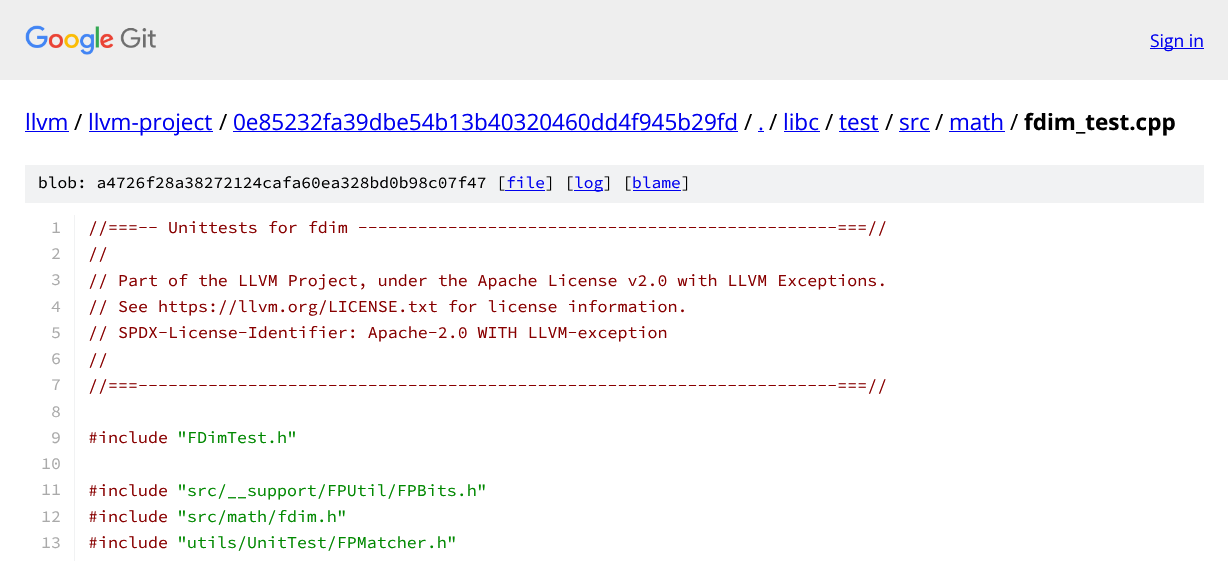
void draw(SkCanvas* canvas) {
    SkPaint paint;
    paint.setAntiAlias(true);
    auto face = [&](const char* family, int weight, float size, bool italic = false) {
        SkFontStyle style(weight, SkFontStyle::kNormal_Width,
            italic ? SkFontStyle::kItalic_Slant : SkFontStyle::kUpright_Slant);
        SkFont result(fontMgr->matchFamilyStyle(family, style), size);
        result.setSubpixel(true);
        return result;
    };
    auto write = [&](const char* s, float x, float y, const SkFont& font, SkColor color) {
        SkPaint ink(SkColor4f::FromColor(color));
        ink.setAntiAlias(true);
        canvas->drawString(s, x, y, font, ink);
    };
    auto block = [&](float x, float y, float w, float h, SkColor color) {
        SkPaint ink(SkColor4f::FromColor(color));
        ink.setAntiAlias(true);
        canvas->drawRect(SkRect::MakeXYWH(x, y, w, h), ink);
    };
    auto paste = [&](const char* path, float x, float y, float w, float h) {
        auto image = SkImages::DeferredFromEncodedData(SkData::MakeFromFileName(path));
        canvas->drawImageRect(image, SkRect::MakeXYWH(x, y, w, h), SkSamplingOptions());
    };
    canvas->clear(SK_ColorWHITE);
    block(0, 0, 1228, 80, SkColorSetRGB(238, 238, 238));
    paste("pic1.png", 25, 25, 131, 30);
    block(1150, 48, 54, 1, SkColorSetRGB(0, 0, 238));
    auto kFont1 = face("Open Sans", 400, 17.5f);
    write("Sign in", 1150, 47, kFont1, SkColorSetRGB(0, 0, 238));
    auto kFont2 = face("Open Sans", 400, 22.5f);
    write("llvm", 25, 130, kFont2, SkColorSetRGB(0, 0, 238));
    block(25, 131, 44, 1, SkColorSetRGB(0, 0, 238));
    write("/", 74, 130, kFont2, SK_ColorBLACK);
    block(89, 131, 124, 1, SkColorSetRGB(0, 0, 238));
    write("llvm-project", 88, 130, kFont2, SkColorSetRGB(0, 0, 238));
    write("/", 219, 130, kFont2, SK_ColorBLACK);
    write("0e85232fa39dbe54b13b40320460dd4f945b29fd", 233, 130, kFont2, SkColorSetRGB(0, 0, 238));
    block(233, 131, 505, 1, SkColorSetRGB(0, 0, 238));
    write("/", 744, 130, kFont2, SK_ColorBLACK);
    write(".", 758, 130, kFont2, SkColorSetRGB(0, 0, 238));
    block(758, 131, 6, 1, SkColorSetRGB(0, 0, 238));
    write("/", 769, 130, kFont2, SK_ColorBLACK);
    write("libc", 783, 130, kFont2, SkColorSetRGB(0, 0, 238));
    block(784, 131, 36, 1, SkColorSetRGB(0, 0, 238));
    write("/", 825, 130, kFont2, SK_ColorBLACK);
    write("test", 839, 130, kFont2, SkColorSetRGB(0, 0, 238));
    block(839, 131, 40, 1, SkColorSetRGB(0, 0, 238));
    write("/", 885, 130, kFont2, SK_ColorBLACK);
    write("src", 899, 130, kFont2, SkColorSetRGB(0, 0, 238));
    block(899, 131, 31, 1, SkColorSetRGB(0, 0, 238));
    write("/", 935, 130, kFont2, SK_ColorBLACK);
    write("math", 949, 130, kFont2, SkColorSetRGB(0, 0, 238));
    block(949, 131, 56, 1, SkColorSetRGB(0, 0, 238));
    write("/", 1010, 130, kFont2, SK_ColorBLACK);
    auto kFont3 = face("Open Sans", 700, 22.5f);
    write("fdim_test.cpp", 1024, 130, kFont3, SK_ColorBLACK);
    block(25, 165, 1179, 38, SkColorSetRGB(241, 242, 243));
    auto kFont4 = face("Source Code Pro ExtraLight", 200, 16.25f);
    write("blob: a4726f28a38272124cafa60ea328bd0b98c07f47 [", 38, 188, kFont4, SK_ColorBLACK);
    write("file", 506, 188, kFont4, SkColorSetRGB(0, 0, 238));
    block(505, 190, 40, 1, SkColorSetRGB(0, 0, 238));
    write("] [", 545, 188, kFont4, SK_ColorBLACK);
    block(574, 190, 29, 1, SkColorSetRGB(0, 0, 238));
    write("log", 574, 188, kFont4, SkColorSetRGB(0, 0, 238));
    write("] [", 603, 188, kFont4, SK_ColorBLACK);
    write("blame", 632, 188, kFont4, SkColorSetRGB(0, 0, 238));
    block(633, 190, 48, 1, SkColorSetRGB(0, 0, 238));
    write("]", 681, 188, kFont4, SK_ColorBLACK);
    block(74, 215, 1, 346, SkColorSetRGB(241, 242, 243));
    auto kFont5 = face("Source Code Pro ExtraLight", 200, 16.65f);
    write("1", 51, 233, kFont5, SkColorSetRGB(170, 170, 170));
    write("//===-- Unittests for fdim ------------------------------------------------===//", 88, 233, kFont5, SkColorSetRGB(136, 0, 0));
    write("2", 51, 259, kFont5, SkColorSetRGB(170, 170, 170));
    write("//", 88, 259, kFont5, SkColorSetRGB(136, 0, 0));
    write("3", 51, 285, kFont5, SkColorSetRGB(170, 170, 170));
    write("// Part of the LLVM Project, under the Apache License v2.0 with LLVM Exceptions.", 88, 286, kFont5, SkColorSetRGB(136, 0, 0));
    write("4", 51, 312, kFont5, SkColorSetRGB(170, 170, 170));
    write("// See https://llvm.org/LICENSE.txt for license information.", 88, 312, kFont5, SkColorSetRGB(136, 0, 0));
    write("5", 51, 338, kFont5, SkColorSetRGB(170, 170, 170));
    write("// SPDX-License-Identifier: Apache-2.0 WITH LLVM-exception", 88, 338, kFont5, SkColorSetRGB(136, 0, 0));
    write("6", 51, 364, kFont5, SkColorSetRGB(170, 170, 170));
    write("//", 88, 365, kFont5, SkColorSetRGB(136, 0, 0));
    write("7", 51, 390, kFont5, SkColorSetRGB(170, 170, 170));
    write("//===----------------------------------------------------------------------===//", 88, 391, kFont5, SkColorSetRGB(136, 0, 0));
    write("8", 51, 417, kFont5, SkColorSetRGB(170, 170, 170));
    write("9", 51, 443, kFont5, SkColorSetRGB(170, 170, 170));
    write("#include", 88, 443, kFont5, SkColorSetRGB(136, 0, 0));
    write("\"FDimTest.h\"", 177, 443, kFont5, SkColorSetRGB(0, 136, 0));
    write("10", 41, 469, kFont5, SkColorSetRGB(170, 170, 170));
    write("11", 41, 495, kFont5, SkColorSetRGB(170, 170, 170));
    write("#include", 88, 496, kFont5, SkColorSetRGB(136, 0, 0));
    write("\"src/__support/FPUtil/FPBits.h\"", 177, 496, kFont5, SkColorSetRGB(0, 136, 0));
    write("12", 41, 522, kFont5, SkColorSetRGB(170, 170, 170));
    write("#include", 88, 522, kFont5, SkColorSetRGB(136, 0, 0));
    write("\"src/math/fdim.h\"", 177, 522, kFont5, SkColorSetRGB(0, 136, 0));
    write("13", 41, 548, kFont5, SkColorSetRGB(170, 170, 170));
    write("#include", 88, 548, kFont5, SkColorSetRGB(136, 0, 0));
    write("\"utils/UnitTest/FPMatcher.h\"", 177, 548, kFont5, SkColorSetRGB(0, 136, 0));
}
